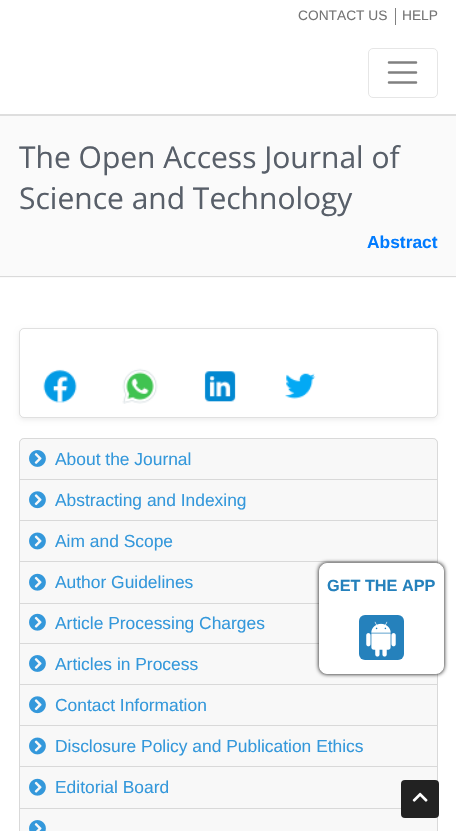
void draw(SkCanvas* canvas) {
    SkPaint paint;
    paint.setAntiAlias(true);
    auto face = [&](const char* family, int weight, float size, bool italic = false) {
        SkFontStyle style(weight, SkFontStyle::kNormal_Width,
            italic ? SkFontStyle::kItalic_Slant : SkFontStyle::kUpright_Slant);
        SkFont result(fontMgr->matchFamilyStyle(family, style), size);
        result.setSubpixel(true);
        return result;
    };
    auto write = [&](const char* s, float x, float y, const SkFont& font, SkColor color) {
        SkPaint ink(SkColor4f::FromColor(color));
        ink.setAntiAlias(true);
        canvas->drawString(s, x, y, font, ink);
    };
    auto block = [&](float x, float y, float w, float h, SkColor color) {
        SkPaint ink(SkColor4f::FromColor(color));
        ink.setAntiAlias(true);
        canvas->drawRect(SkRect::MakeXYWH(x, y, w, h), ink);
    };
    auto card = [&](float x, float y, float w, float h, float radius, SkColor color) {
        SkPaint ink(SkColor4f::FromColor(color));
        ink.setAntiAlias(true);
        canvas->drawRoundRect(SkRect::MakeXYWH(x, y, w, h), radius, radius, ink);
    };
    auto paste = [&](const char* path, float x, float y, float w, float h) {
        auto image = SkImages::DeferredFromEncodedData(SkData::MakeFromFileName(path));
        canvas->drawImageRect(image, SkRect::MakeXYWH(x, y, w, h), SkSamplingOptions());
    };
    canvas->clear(SK_ColorWHITE);
    block(0, 114, 456, 2, SkColorSetRGB(222, 222, 222));
    auto kFont1 = face("Liberation Sans", 400, 13.75f);
    write("CONTACT US", 298, 20, kFont1, SkColorSetRGB(117, 117, 117));
    block(395, 8, 1, 17, SkColorSetRGB(128, 128, 128));
    write("HELP", 402, 20, kFont1, SkColorSetRGB(117, 117, 117));
    paint.setStyle(SkPaint::kStroke_Style);
    paint.setStrokeWidth(1);
    paint.setColor(SkColorSetRGB(230, 230, 230));
    canvas->drawRoundRect(SkRect::MakeXYWH(368.5f, 48.5f, 69, 49), 4.5f, 4.5f, paint);
    paint.setStrokeWidth(2.5f);
    paint.setStrokeCap(SkPaint::kRound_Cap);
    paint.setColor(SkColorSetRGB(128, 128, 128));
    canvas->drawPath(SkPathBuilder().moveTo(389, 62.5f).lineTo(416, 62.5f).moveTo(389, 72.5f).lineTo(416, 72.5f).moveTo(389, 82.5f).lineTo(416, 82.5f).detach(), paint);
    block(0, 116, 456, 162, SkColorSetRGB(250, 250, 250));
    block(0, 276, 456, 1, SkColorSetRGB(218, 218, 218));
    auto kFont2 = face("Open Sans", 400, 30);
    write("The Open Access Journal of", 19, 168, kFont2, SkColorSetRGB(88, 95, 105));
    write("Science and Technology", 19, 209, kFont2, SkColorSetRGB(88, 95, 105));
    auto kFont3 = face("Liberation Sans", 700, 17.4f);
    write("Abstract", 367, 248, kFont3, SkColorSetRGB(0, 123, 255));
    paint.setStyle(SkPaint::kFill_Style);
    paint.setColor(SkColorSetARGB(18, 0, 0, 0));
    paint.setMaskFilter(SkMaskFilter::MakeBlur(kNormal_SkBlurStyle, 2.5f));
    canvas->drawRoundRect(SkRect::MakeXYWH(19, 330, 419, 90), 5, 5, paint);
    paint.setMaskFilter(nullptr);
    card(19, 328, 419, 90, 5, SK_ColorWHITE);
    paint.setStyle(SkPaint::kStroke_Style);
    paint.setStrokeWidth(1);
    paint.setStrokeCap(SkPaint::kButt_Cap);
    paint.setColor(SkColorSetARGB(31, 0, 0, 0));
    canvas->drawRoundRect(SkRect::MakeXYWH(19.5f, 328.5f, 418, 89), 4.5f, 4.5f, paint);
    paste("pic1.png", 43, 369, 34, 34);
    paste("pic2.png", 122, 368, 36, 36);
    paste("pic3.png", 204, 371, 32, 31);
    paste("pic4.png", 285, 373, 31, 26);
    paint.setStyle(SkPaint::kFill_Style);
    paint.setColor(SkColorSetRGB(248, 248, 248));
    canvas->drawPath(SkPathBuilder().moveTo(24, 438).lineTo(433, 438).cubicTo(436, 438, 438, 440, 438, 443).lineTo(438, 480).lineTo(19, 480).lineTo(19, 443).cubicTo(19, 440, 21, 438, 24, 438).close().detach(), paint);
    paint.setStyle(SkPaint::kStroke_Style);
    paint.setColor(SkColorSetARGB(31, 0, 0, 0));
    canvas->drawPath(SkPathBuilder().moveTo(24, 438.5f).lineTo(433, 438.5f).cubicTo(435.5f, 438.5f, 437.5f, 440.5f, 437.5f, 443).lineTo(437.5f, 479.5f).lineTo(19.5f, 479.5f).lineTo(19.5f, 443).cubicTo(19.5f, 440.5f, 21.5f, 438.5f, 24, 438.5f).close().detach(), paint);
    paste("pic5.png", 29, 450, 17, 17);
    auto kFont4 = face("Liberation Sans", 400, 17.4f);
    write("About the Journal", 55, 465, kFont4, SkColorSetRGB(52, 152, 219));
    paint.setStyle(SkPaint::kFill_Style);
    paint.setColor(SkColorSetRGB(248, 248, 248));
    canvas->drawRect(SkRect::MakeXYWH(19.5f, 479.5f, 418, 41), paint);
    paint.setStyle(SkPaint::kStroke_Style);
    paint.setColor(SkColorSetRGB(217, 217, 217));
    canvas->drawRect(SkRect::MakeXYWH(19.5f, 479.5f, 418, 41), paint);
    paste("pic6.png", 29, 491, 17, 18);
    write("Abstracting and Indexing", 55, 506, kFont4, SkColorSetRGB(52, 152, 219));
    block(20, 521, 417, 40, SkColorSetRGB(248, 248, 248));
    canvas->drawRect(SkRect::MakeXYWH(19.5f, 520.5f, 418, 42), paint);
    paste("pic7.png", 29, 532, 17, 18);
    write("Aim and Scope", 55, 547, kFont4, SkColorSetRGB(52, 152, 219));
    paint.setStyle(SkPaint::kFill_Style);
    paint.setColor(SkColorSetRGB(248, 248, 248));
    canvas->drawRect(SkRect::MakeXYWH(19.5f, 561.5f, 418, 42), paint);
    paint.setStyle(SkPaint::kStroke_Style);
    paint.setColor(SkColorSetRGB(217, 217, 217));
    canvas->drawRect(SkRect::MakeXYWH(19.5f, 561.5f, 418, 42), paint);
    paste("pic8.png", 29, 573, 17, 18);
    write("Author Guidelines", 55, 588, kFont4, SkColorSetRGB(52, 152, 219));
    block(20, 604, 299, 39, SkColorSetRGB(248, 248, 248));
    canvas->drawRect(SkRect::MakeXYWH(19.5f, 603.5f, 418, 40), paint);
    paste("pic8.png", 29, 613, 17, 18);
    write("Article Processing Charges", 55, 629, kFont4, SkColorSetRGB(52, 152, 219));
    paint.setStyle(SkPaint::kFill_Style);
    paint.setColor(SkColorSetRGB(248, 248, 248));
    canvas->drawRect(SkRect::MakeXYWH(19.5f, 643.5f, 418, 41), paint);
    paint.setStyle(SkPaint::kStroke_Style);
    paint.setColor(SkColorSetRGB(217, 217, 217));
    canvas->drawRect(SkRect::MakeXYWH(19.5f, 643.5f, 418, 41), paint);
    paste("pic5.png", 29, 655, 17, 17);
    write("Articles in Process", 55, 670, kFont4, SkColorSetRGB(52, 152, 219));
    paint.setStyle(SkPaint::kFill_Style);
    paint.setColor(SkColorSetRGB(248, 248, 248));
    canvas->drawRect(SkRect::MakeXYWH(19.5f, 684.5f, 418, 41), paint);
    paint.setStyle(SkPaint::kStroke_Style);
    paint.setColor(SkColorSetRGB(217, 217, 217));
    canvas->drawRect(SkRect::MakeXYWH(19.5f, 684.5f, 418, 41), paint);
    paste("pic6.png", 29, 696, 17, 18);
    write("Contact Information", 55, 711, kFont4, SkColorSetRGB(52, 152, 219));
    block(20, 726, 417, 40, SkColorSetRGB(248, 248, 248));
    canvas->drawRect(SkRect::MakeXYWH(19.5f, 725.5f, 418, 42), paint);
    paste("pic7.png", 29, 737, 17, 18);
    write("Disclosure Policy and Publication Ethics", 55, 752, kFont4, SkColorSetRGB(52, 152, 219));
    paint.setStyle(SkPaint::kFill_Style);
    paint.setColor(SkColorSetRGB(248, 248, 248));
    canvas->drawRect(SkRect::MakeXYWH(19.5f, 766.5f, 418, 42), paint);
    paint.setStyle(SkPaint::kStroke_Style);
    paint.setColor(SkColorSetRGB(217, 217, 217));
    canvas->drawRect(SkRect::MakeXYWH(19.5f, 766.5f, 418, 42), paint);
    paste("pic8.png", 29, 778, 17, 18);
    write("Editorial Board", 55, 793, kFont4, SkColorSetRGB(52, 152, 219));
    paint.setStyle(SkPaint::kFill_Style);
    paint.setColor(SkColorSetRGB(248, 248, 248));
    canvas->drawRect(SkRect::MakeXYWH(19.5f, 808.5f, 418, 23), paint);
    paint.setStyle(SkPaint::kStroke_Style);
    paint.setColor(SkColorSetRGB(217, 217, 217));
    canvas->drawRect(SkRect::MakeXYWH(19.5f, 808.5f, 418, 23), paint);
    paste("pic9.png", 29, 820, 17, 11);
    paint.setStyle(SkPaint::kFill_Style);
    paint.setColor(SK_ColorBLACK);
    paint.setMaskFilter(SkMaskFilter::MakeBlur(kNormal_SkBlurStyle, 2));
    canvas->drawRoundRect(SkRect::MakeXYWH(319, 563, 125, 111), 8, 8, paint);
    paint.setMaskFilter(nullptr);
    paint.setColor(SK_ColorWHITE);
    canvas->drawRoundRect(SkRect::MakeXYWH(319.5f, 563.5f, 124, 110), 7.5f, 7.5f, paint);
    paint.setStyle(SkPaint::kStroke_Style);
    canvas->drawRoundRect(SkRect::MakeXYWH(319.5f, 563.5f, 124, 110), 7.5f, 7.5f, paint);
    auto kFont5 = face("Liberation Sans", 700, 16.25f);
    write("GET THE APP", 327, 591, kFont5, SkColorSetRGB(37, 129, 188));
    card(359, 615, 45, 45, 6, SkColorSetRGB(37, 129, 188));
    paste("pic10.png", 366, 621, 30, 36);
    card(401, 780, 38, 38, 4, SkColorSetRGB(34, 34, 34));
    paste("pic11.png", 412, 792, 16, 10);
}
